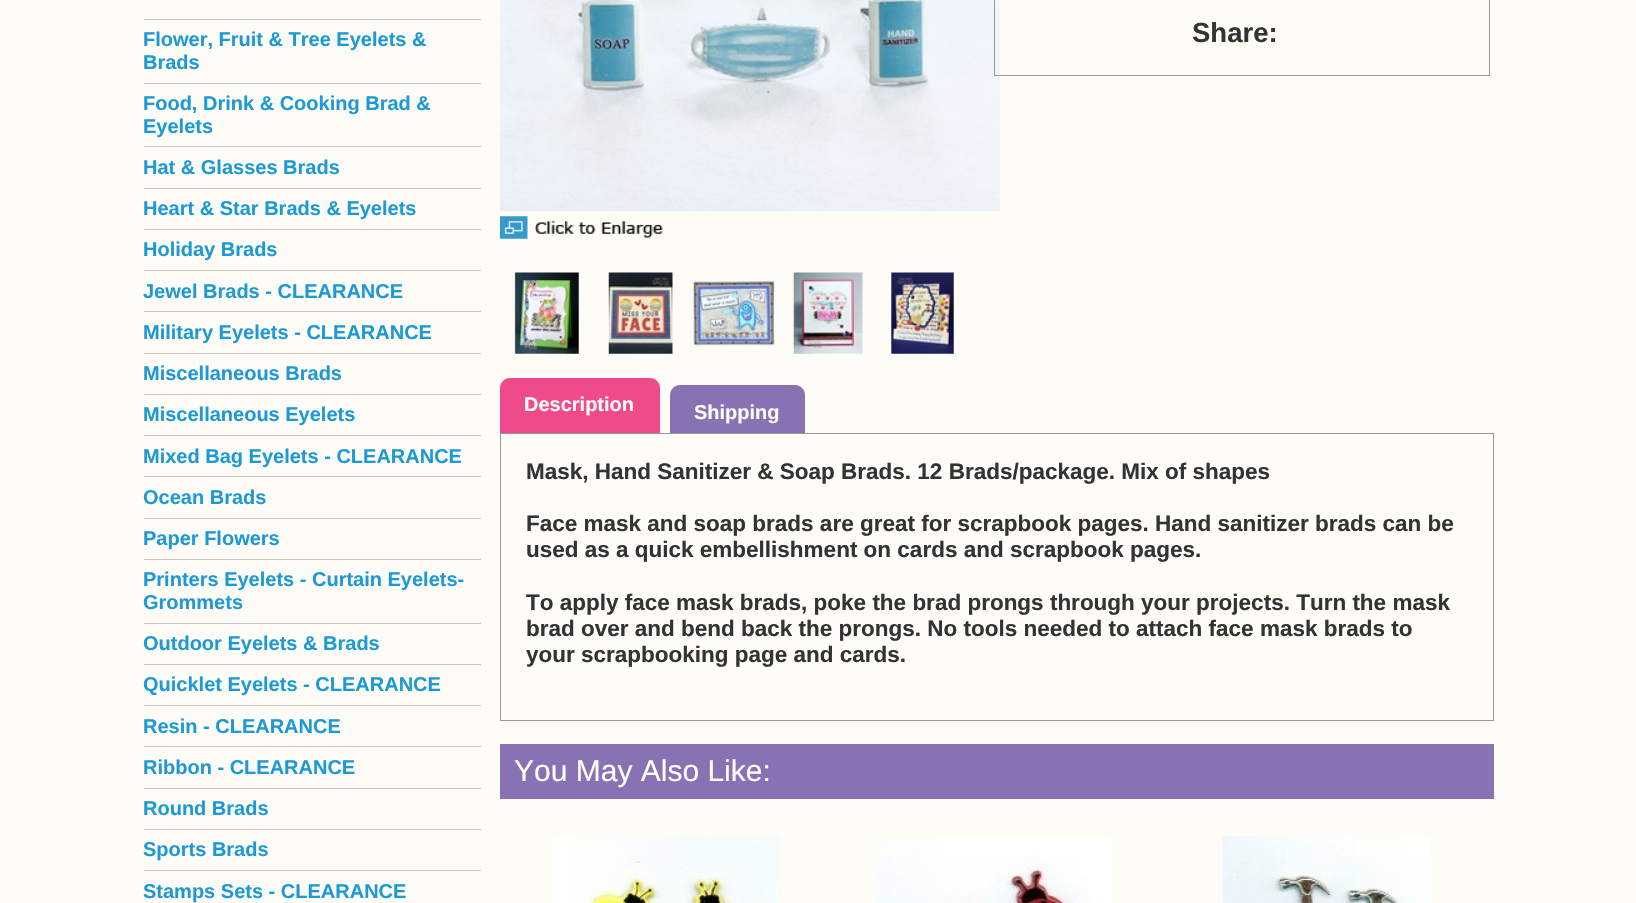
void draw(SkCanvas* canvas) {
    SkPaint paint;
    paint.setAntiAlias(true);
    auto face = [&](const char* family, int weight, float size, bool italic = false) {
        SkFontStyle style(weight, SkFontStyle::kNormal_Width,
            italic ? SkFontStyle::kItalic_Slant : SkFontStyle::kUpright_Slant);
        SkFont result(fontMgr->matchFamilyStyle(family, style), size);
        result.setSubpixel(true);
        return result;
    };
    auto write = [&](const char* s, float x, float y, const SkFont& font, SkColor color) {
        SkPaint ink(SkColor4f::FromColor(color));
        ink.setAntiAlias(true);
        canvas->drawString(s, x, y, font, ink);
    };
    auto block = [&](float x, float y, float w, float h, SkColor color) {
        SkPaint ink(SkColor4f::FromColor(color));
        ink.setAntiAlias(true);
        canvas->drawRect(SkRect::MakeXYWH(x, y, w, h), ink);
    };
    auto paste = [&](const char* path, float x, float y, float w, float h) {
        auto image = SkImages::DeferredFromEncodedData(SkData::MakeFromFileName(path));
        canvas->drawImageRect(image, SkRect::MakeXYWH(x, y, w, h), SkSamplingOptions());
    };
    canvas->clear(SkColorSetRGB(253, 252, 247));
    block(144, 19, 337, 1, SkColorSetRGB(200, 199, 197));
    block(144, 83, 337, 1, SkColorSetRGB(200, 199, 197));
    auto kFont1 = face("Liberation Sans", 700, 20);
    write("Flower, Fruit & Tree Eyelets &", 143, 46, kFont1, SkColorSetRGB(29, 153, 214));
    write("Brads", 143, 69, kFont1, SkColorSetRGB(29, 153, 214));
    block(144, 146, 337, 1, SkColorSetRGB(200, 199, 197));
    write("Food, Drink & Cooking Brad &", 143, 110, kFont1, SkColorSetRGB(29, 153, 214));
    write("Eyelets", 143, 133, kFont1, SkColorSetRGB(29, 153, 214));
    block(144, 188, 337, 1, SkColorSetRGB(200, 199, 197));
    write("Hat & Glasses Brads", 143, 174, kFont1, SkColorSetRGB(29, 153, 214));
    block(144, 229, 337, 1, SkColorSetRGB(200, 199, 197));
    write("Heart & Star Brads & Eyelets", 143, 215, kFont1, SkColorSetRGB(29, 153, 214));
    block(144, 270, 337, 1, SkColorSetRGB(200, 199, 197));
    write("Holiday Brads", 143, 256, kFont1, SkColorSetRGB(29, 153, 214));
    block(144, 311, 337, 1, SkColorSetRGB(200, 199, 197));
    write("Jewel Brads - CLEARANCE", 143, 298, kFont1, SkColorSetRGB(29, 153, 214));
    block(144, 353, 337, 1, SkColorSetRGB(200, 199, 197));
    write("Military Eyelets - CLEARANCE", 143, 339, kFont1, SkColorSetRGB(29, 153, 214));
    block(144, 394, 337, 1, SkColorSetRGB(200, 199, 197));
    write("Miscellaneous Brads", 143, 380, kFont1, SkColorSetRGB(29, 153, 214));
    block(144, 435, 337, 1, SkColorSetRGB(200, 199, 197));
    write("Miscellaneous Eyelets", 143, 421, kFont1, SkColorSetRGB(29, 153, 214));
    block(144, 476, 337, 1, SkColorSetRGB(200, 199, 197));
    write("Mixed Bag Eyelets - CLEARANCE", 143, 463, kFont1, SkColorSetRGB(29, 153, 214));
    block(144, 518, 337, 1, SkColorSetRGB(200, 199, 197));
    write("Ocean Brads", 143, 504, kFont1, SkColorSetRGB(29, 153, 214));
    block(144, 559, 337, 1, SkColorSetRGB(200, 199, 197));
    write("Paper Flowers", 143, 545, kFont1, SkColorSetRGB(29, 153, 214));
    block(144, 623, 337, 1, SkColorSetRGB(200, 199, 197));
    write("Printers Eyelets - Curtain Eyelets-", 143, 586, kFont1, SkColorSetRGB(29, 153, 214));
    write("Grommets", 143, 609, kFont1, SkColorSetRGB(29, 153, 214));
    block(144, 664, 337, 1, SkColorSetRGB(200, 199, 197));
    write("Outdoor Eyelets & Brads", 143, 650, kFont1, SkColorSetRGB(29, 153, 214));
    block(144, 705, 337, 1, SkColorSetRGB(200, 199, 197));
    write("Quicklet Eyelets - CLEARANCE", 143, 691, kFont1, SkColorSetRGB(29, 153, 214));
    block(144, 746, 337, 1, SkColorSetRGB(200, 199, 197));
    write("Resin - CLEARANCE", 143, 733, kFont1, SkColorSetRGB(29, 153, 214));
    block(144, 788, 337, 1, SkColorSetRGB(200, 199, 197));
    write("Ribbon - CLEARANCE", 143, 774, kFont1, SkColorSetRGB(29, 153, 214));
    block(144, 829, 337, 1, SkColorSetRGB(200, 199, 197));
    write("Round Brads", 143, 815, kFont1, SkColorSetRGB(29, 153, 214));
    block(144, 870, 337, 1, SkColorSetRGB(200, 199, 197));
    write("Sports Brads", 143, 856, kFont1, SkColorSetRGB(29, 153, 214));
    write("Stamps Sets - CLEARANCE", 143, 898, kFont1, SkColorSetRGB(29, 153, 214));
    paste("pic1.png", 500, 0, 500, 212);
    paste("pic2.png", 500, 216, 163, 23);
    paste("pic3.png", 513, 272, 66, 82);
    paste("pic4.png", 607, 272, 67, 82);
    paste("pic5.png", 693, 280, 82, 66);
    paste("pic6.png", 792, 272, 71, 82);
    paste("pic7.png", 890, 272, 65, 82);
    paint.setStyle(SkPaint::kStroke_Style);
    paint.setStrokeWidth(1);
    paint.setColor(SkColorSetRGB(153, 153, 153));
    canvas->drawRect(SkRect::MakeXYWH(994.5f, -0.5f, 495, 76), paint);
    auto kFont2 = face("Liberation Sans", 700, 27.5f);
    write("Share:", 1192, 42, kFont2, SkColorSetRGB(51, 51, 51));
    paint.setStyle(SkPaint::kFill_Style);
    paint.setColor(SkColorSetRGB(239, 75, 138));
    canvas->drawPath(SkPathBuilder().moveTo(510, 378).lineTo(650, 378).cubicTo(655.5f, 378, 660, 382.5f, 660, 388).lineTo(660, 433).lineTo(500, 433).lineTo(500, 388).cubicTo(500, 382.5f, 504.5f, 378, 510, 378).close().detach(), paint);
    write("Description", 524, 411, kFont1, SkColorSetRGB(253, 252, 247));
    paint.setColor(SkColorSetRGB(137, 114, 179));
    canvas->drawPath(SkPathBuilder().moveTo(680, 385).lineTo(795, 385).cubicTo(800.5f, 385, 805, 389.5f, 805, 395).lineTo(805, 440).lineTo(670, 440).lineTo(670, 395).cubicTo(670, 389.5f, 674.5f, 385, 680, 385).close().detach(), paint);
    write("Shipping", 694, 419, kFont1, SkColorSetRGB(253, 252, 247));
    paint.setStyle(SkPaint::kStroke_Style);
    paint.setColor(SkColorSetRGB(153, 153, 153));
    canvas->drawRect(SkRect::MakeXYWH(500.5f, 433.5f, 993, 287), paint);
    block(670, 434, 135, 6, SkColorSetRGB(253, 252, 247));
    auto kFont3 = face("Liberation Sans", 700, 22.5f);
    write("Mask, Hand Sanitizer & Soap Brads. 12 Brads/package. Mix of shapes", 526, 479, kFont3, SkColorSetRGB(51, 51, 51));
    write("Face mask and soap brads are great for scrapbook pages. Hand sanitizer brads can be", 526, 531, kFont3, SkColorSetRGB(51, 51, 51));
    write("used as a quick embellishment on cards and scrapbook pages.", 526, 557, kFont3, SkColorSetRGB(51, 51, 51));
    write("To apply face mask brads, poke the brad prongs through your projects. Turn the mask", 526, 610, kFont3, SkColorSetRGB(51, 51, 51));
    write("brad over and bend back the prongs. No tools needed to attach face mask brads to", 526, 636, kFont3, SkColorSetRGB(51, 51, 51));
    write("your scrapbooking page and cards.", 526, 662, kFont3, SkColorSetRGB(51, 51, 51));
    block(500, 744, 994, 55, SkColorSetRGB(137, 114, 179));
    auto kFont4 = face("Liberation Sans", 400, 30);
    write("You May Also Like:", 514, 781, kFont4, SK_ColorWHITE);
    paste("pic8.png", 553, 836, 228, 67);
    paste("pic9.png", 877, 837, 236, 66);
    paste("pic10.png", 1222, 836, 208, 67);
}
